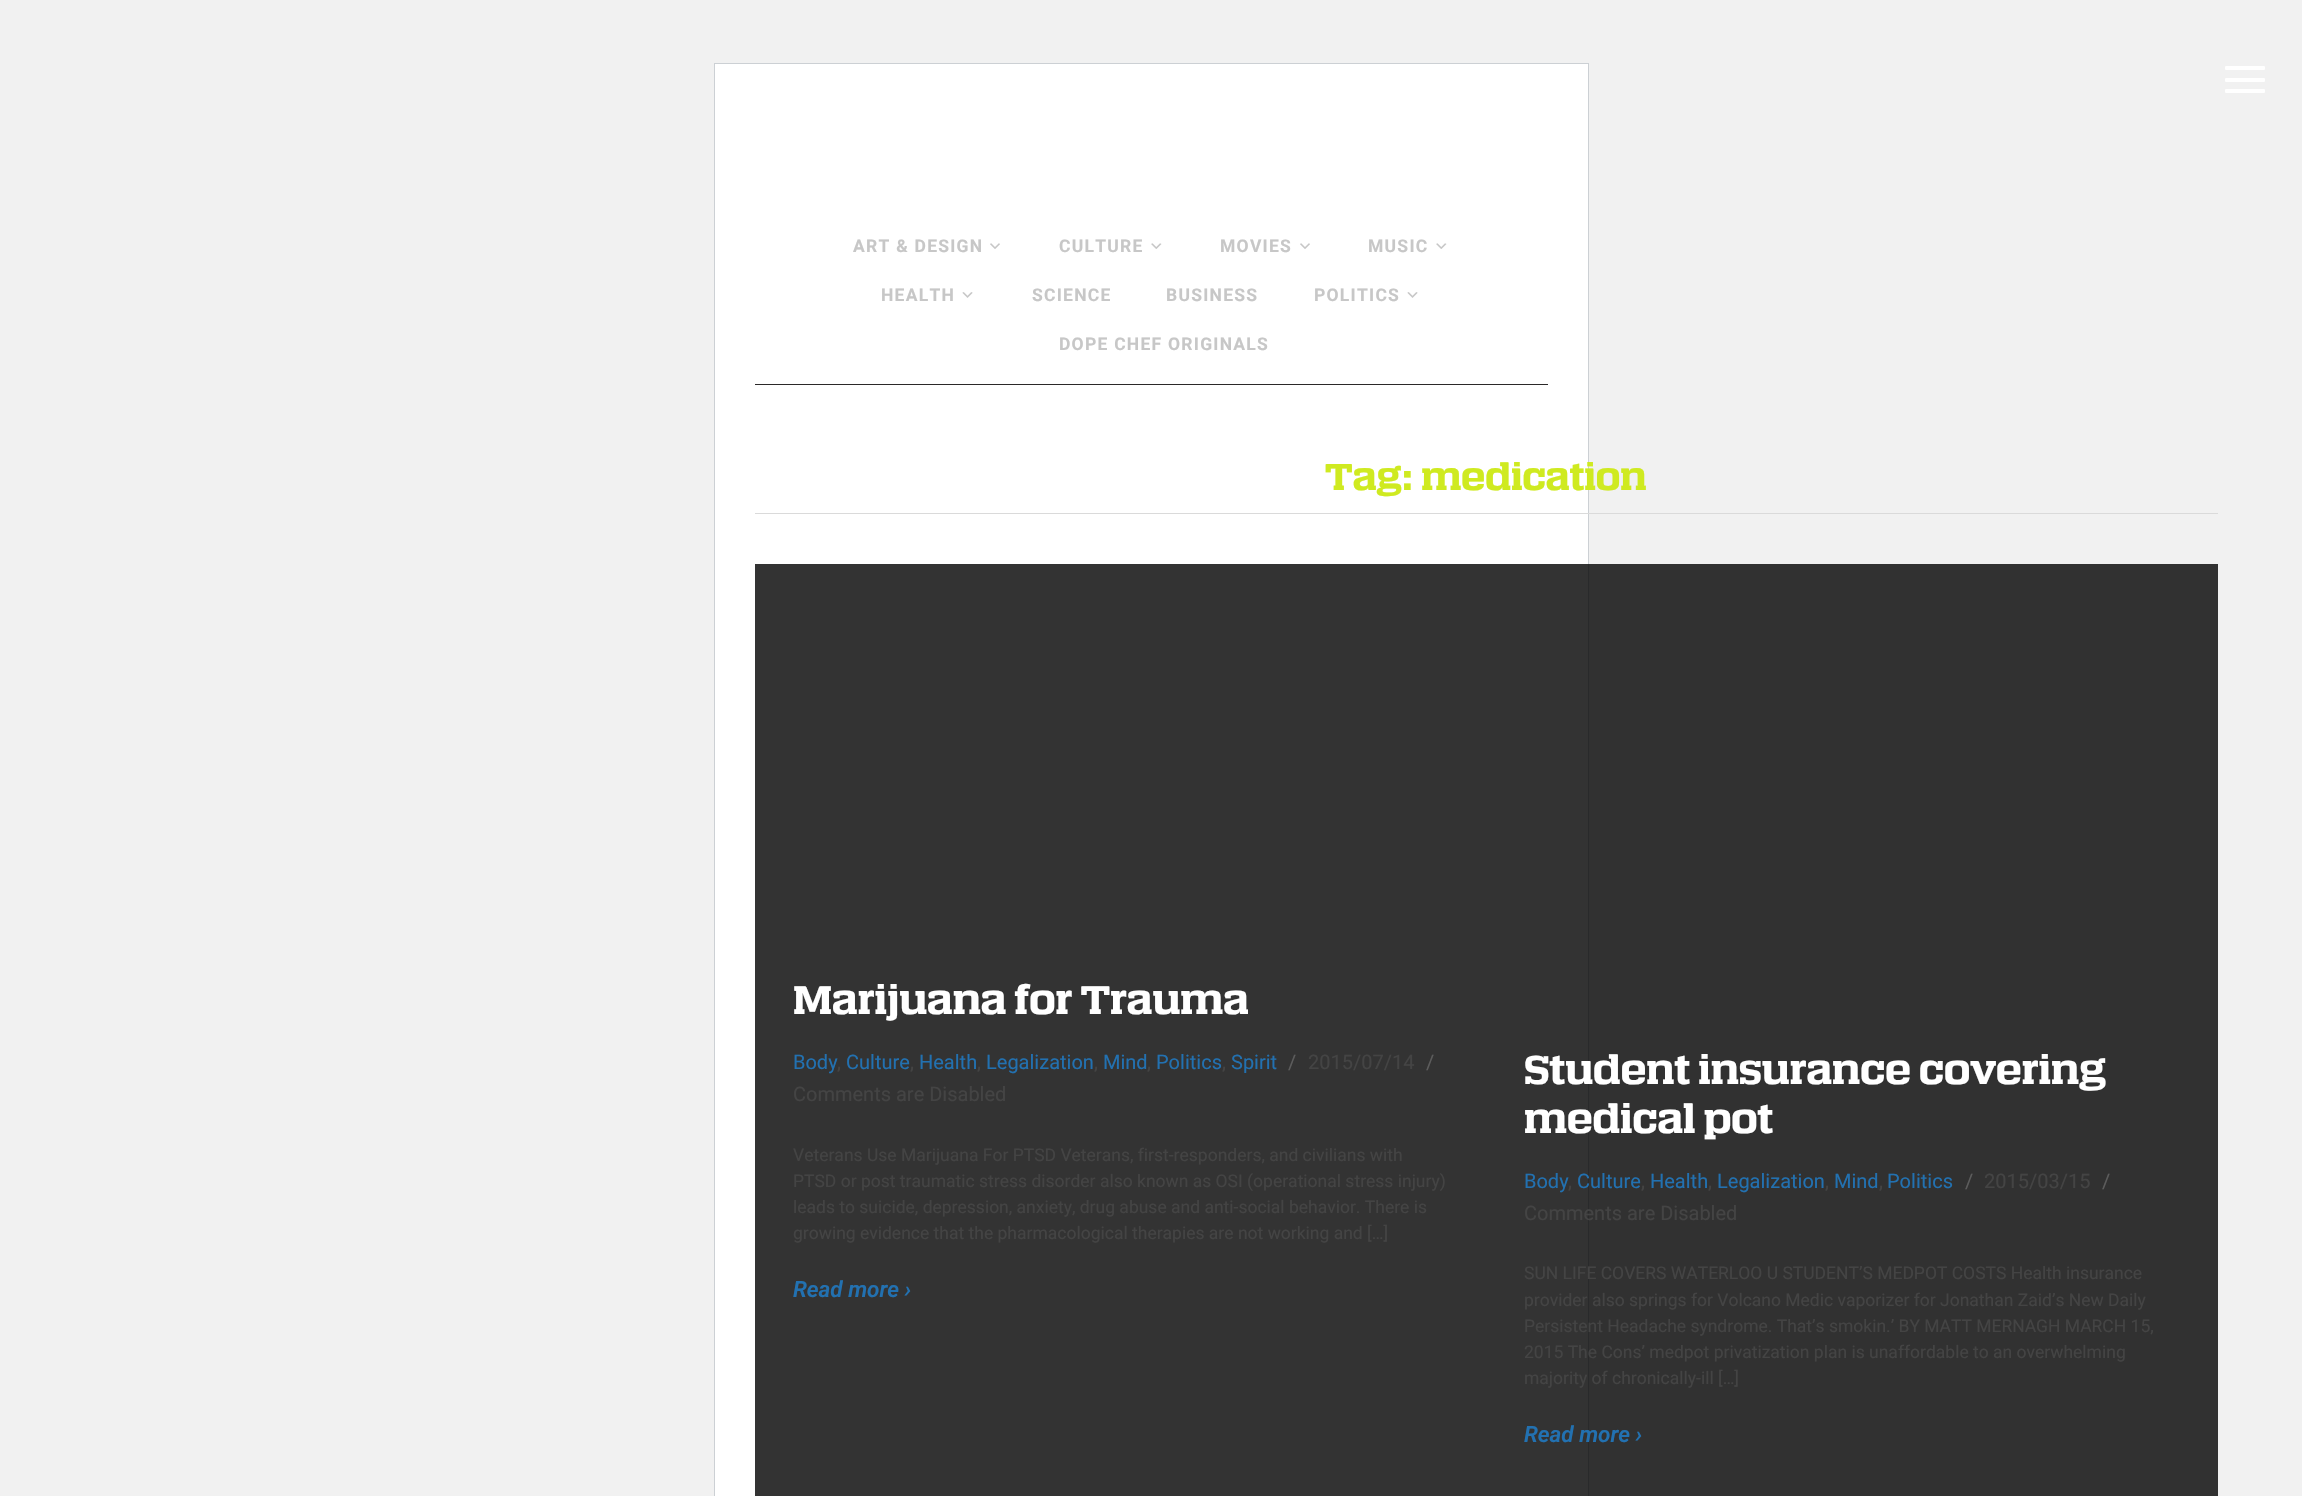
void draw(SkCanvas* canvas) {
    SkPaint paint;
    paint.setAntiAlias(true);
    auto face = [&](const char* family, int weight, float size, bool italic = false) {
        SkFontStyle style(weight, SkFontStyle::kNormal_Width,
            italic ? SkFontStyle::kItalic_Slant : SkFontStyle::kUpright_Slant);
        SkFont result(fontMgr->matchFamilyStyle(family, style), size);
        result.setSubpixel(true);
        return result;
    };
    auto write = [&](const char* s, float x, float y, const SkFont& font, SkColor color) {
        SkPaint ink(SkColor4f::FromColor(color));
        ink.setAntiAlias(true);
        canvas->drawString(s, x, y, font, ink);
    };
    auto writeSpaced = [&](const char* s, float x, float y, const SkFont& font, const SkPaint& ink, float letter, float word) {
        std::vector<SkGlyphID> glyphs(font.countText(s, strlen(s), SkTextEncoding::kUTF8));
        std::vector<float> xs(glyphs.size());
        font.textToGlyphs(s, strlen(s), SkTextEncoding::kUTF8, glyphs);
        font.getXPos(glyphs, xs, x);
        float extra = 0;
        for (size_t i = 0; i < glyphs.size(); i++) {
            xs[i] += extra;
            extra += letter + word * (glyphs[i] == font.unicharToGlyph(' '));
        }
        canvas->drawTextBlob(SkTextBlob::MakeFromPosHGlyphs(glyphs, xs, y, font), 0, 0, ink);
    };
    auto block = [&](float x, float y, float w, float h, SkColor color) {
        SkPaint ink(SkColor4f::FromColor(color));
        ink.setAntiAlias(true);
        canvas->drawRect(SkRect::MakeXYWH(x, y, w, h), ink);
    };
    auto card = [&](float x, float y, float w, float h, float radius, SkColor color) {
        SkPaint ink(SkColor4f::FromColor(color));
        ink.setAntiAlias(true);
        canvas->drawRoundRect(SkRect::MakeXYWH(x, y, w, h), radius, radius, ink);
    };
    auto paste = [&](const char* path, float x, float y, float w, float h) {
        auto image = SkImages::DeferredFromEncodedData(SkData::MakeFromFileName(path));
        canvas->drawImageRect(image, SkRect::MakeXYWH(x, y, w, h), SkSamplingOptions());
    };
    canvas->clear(SkColorSetRGB(241, 241, 241));
    paint.setColor(SK_ColorWHITE);
    canvas->drawRect(SkRect::MakeXYWH(714.5f, 63.5f, 874, 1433), paint);
    paint.setStyle(SkPaint::kStroke_Style);
    paint.setStrokeWidth(1);
    paint.setColor(SkColorSetRGB(204, 208, 212));
    canvas->drawRect(SkRect::MakeXYWH(714.5f, 63.5f, 874, 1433), paint);
    card(2225, 66, 40, 4, 1, SK_ColorWHITE);
    card(2225, 78, 40, 4, 1, SK_ColorWHITE);
    card(2225, 89, 40, 4, 1, SK_ColorWHITE);
    block(755, 384, 793, 1, SkColorSetRGB(43, 41, 41));
    auto kFont1 = face("Roboto", 700, 17.5f);
    paint.setStyle(SkPaint::kFill_Style);
    paint.setColor(SkColorSetRGB(199, 199, 199));
    writeSpaced("ART & DESIGN", 853, 252, kFont1, paint, 1.25f, 0);
    paste("pic1.png", 990, 243, 10, 6);
    writeSpaced("CULTURE", 1059, 252, kFont1, paint, 1.25f, 0);
    paste("pic2.png", 1151, 243, 11, 6);
    writeSpaced("MOVIES", 1220, 252, kFont1, paint, 1.25f, 0);
    paste("pic1.png", 1300, 243, 10, 6);
    writeSpaced("MUSIC", 1368, 252, kFont1, paint, 1.25f, 0);
    paste("pic2.png", 1436, 243, 11, 6);
    writeSpaced("HEALTH", 881, 301, kFont1, paint, 1.25f, 0);
    paste("pic3.png", 962, 292, 11, 6);
    writeSpaced("SCIENCE", 1032, 301, kFont1, paint, 1.25f, 0);
    writeSpaced("BUSINESS", 1166, 301, kFont1, paint, 1.25f, 0);
    writeSpaced("POLITICS", 1314, 301, kFont1, paint, 1.25f, 0);
    paste("pic3.png", 1407, 292, 11, 6);
    writeSpaced("DOPE CHEF ORIGINALS", 1059, 350, kFont1, paint, 1.25f, 0);
    block(755, 513, 1463, 1, SkColorSetRGB(218, 218, 218));
    auto kFont2 = face("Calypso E", 600, 35);
    write("Tag: medication", 1325, 490, kFont2, SkColorSetRGB(207, 234, 32));
    block(755, 564, 731, 932, SkColorSetRGB(51, 51, 51));
    auto kFont3 = face("Calypso E", 600, 37.5f);
    write("Marijuana for Trauma", 793, 1014, kFont3, SK_ColorWHITE);
    auto kFont4 = face("Roboto", 400, 20);
    write("Body", 793, 1069, kFont4, SkColorSetRGB(34, 113, 177));
    write(",", 837, 1069, kFont4, SkColorSetRGB(68, 68, 68));
    write("Culture", 846, 1069, kFont4, SkColorSetRGB(34, 113, 177));
    write(",", 910, 1069, kFont4, SkColorSetRGB(68, 68, 68));
    write("Health", 919, 1069, kFont4, SkColorSetRGB(34, 113, 177));
    write(",", 977, 1069, kFont4, SkColorSetRGB(68, 68, 68));
    write("Legalization", 986, 1069, kFont4, SkColorSetRGB(34, 113, 177));
    write(",", 1094, 1069, kFont4, SkColorSetRGB(68, 68, 68));
    write("Mind", 1103, 1069, kFont4, SkColorSetRGB(34, 113, 177));
    write(",", 1147, 1069, kFont4, SkColorSetRGB(68, 68, 68));
    write("Politics", 1156, 1069, kFont4, SkColorSetRGB(34, 113, 177));
    write(",", 1222, 1069, kFont4, SkColorSetRGB(68, 68, 68));
    write("Spirit", 1231, 1069, kFont4, SkColorSetRGB(34, 113, 177));
    write("/", 1288, 1069, kFont4, SkColorSetRGB(92, 92, 92));
    write("2015/07/14", 1308, 1069, kFont4, SkColorSetRGB(68, 68, 68));
    write("/", 1426, 1069, kFont4, SkColorSetRGB(92, 92, 92));
    write("Comments are Disabled", 793, 1101, kFont4, SkColorSetRGB(68, 68, 68));
    auto kFont5 = face("Roboto", 400, 17.5f);
    write("Veterans Use Marijuana For PTSD Veterans, first-responders, and civilians with", 793, 1161, kFont5, SkColorSetRGB(68, 68, 68));
    write("PTSD or post traumatic stress disorder also known as OSI (operational stress injury)", 793, 1187, kFont5, SkColorSetRGB(68, 68, 68));
    write("leads to suicide, depression, anxiety, drug abuse and anti-social behavior. There is", 793, 1213, kFont5, SkColorSetRGB(68, 68, 68));
    write("growing evidence that the pharmacological therapies are not working and […]", 793, 1239, kFont5, SkColorSetRGB(68, 68, 68));
    auto kFont6 = face("Roboto", 600, 22.5f, true);
    write("Read more ›", 793, 1297, kFont6, SkColorSetRGB(34, 113, 177));
    block(1486, 564, 732, 901, SkColorSetARGB(204, 0, 0, 0));
    write("Student insurance covering", 1524, 1084, kFont3, SK_ColorWHITE);
    write("medical pot", 1524, 1133, kFont3, SK_ColorWHITE);
    write("Body", 1524, 1188, kFont4, SkColorSetRGB(34, 113, 177));
    write(",", 1568, 1188, kFont4, SkColorSetRGB(68, 68, 68));
    write("Culture", 1577, 1188, kFont4, SkColorSetRGB(34, 113, 177));
    write(",", 1641, 1188, kFont4, SkColorSetRGB(68, 68, 68));
    write("Health", 1650, 1188, kFont4, SkColorSetRGB(34, 113, 177));
    write(",", 1708, 1188, kFont4, SkColorSetRGB(68, 68, 68));
    write("Legalization", 1717, 1188, kFont4, SkColorSetRGB(34, 113, 177));
    write(",", 1825, 1188, kFont4, SkColorSetRGB(68, 68, 68));
    write("Mind", 1834, 1188, kFont4, SkColorSetRGB(34, 113, 177));
    write(",", 1879, 1188, kFont4, SkColorSetRGB(68, 68, 68));
    write("Politics", 1887, 1188, kFont4, SkColorSetRGB(34, 113, 177));
    write("/", 1965, 1188, kFont4, SkColorSetRGB(92, 92, 92));
    write("2015/03/15", 1984, 1188, kFont4, SkColorSetRGB(68, 68, 68));
    write("/", 2102, 1188, kFont4, SkColorSetRGB(92, 92, 92));
    write("Comments are Disabled", 1524, 1220, kFont4, SkColorSetRGB(68, 68, 68));
    write("SUN LIFE COVERS WATERLOO U STUDENT’S MEDPOT COSTS Health insurance", 1524, 1279, kFont5, SkColorSetRGB(68, 68, 68));
    write("provider also springs for Volcano Medic vaporizer for Jonathan Zaid’s New Daily", 1524, 1306, kFont5, SkColorSetRGB(68, 68, 68));
    write("Persistent Headache syndrome. That’s smokin.’ BY MATT MERNAGH MARCH 15,", 1524, 1332, kFont5, SkColorSetRGB(68, 68, 68));
    write("2015 The Cons’ medpot privatization plan is unaffordable to an overwhelming", 1524, 1358, kFont5, SkColorSetRGB(68, 68, 68));
    write("majority of chronically-ill […]", 1524, 1384, kFont5, SkColorSetRGB(68, 68, 68));
    write("Read more ›", 1524, 1442, kFont6, SkColorSetRGB(34, 113, 177));
    block(1486, 1465, 732, 31, SkColorSetARGB(204, 0, 0, 0));
}
